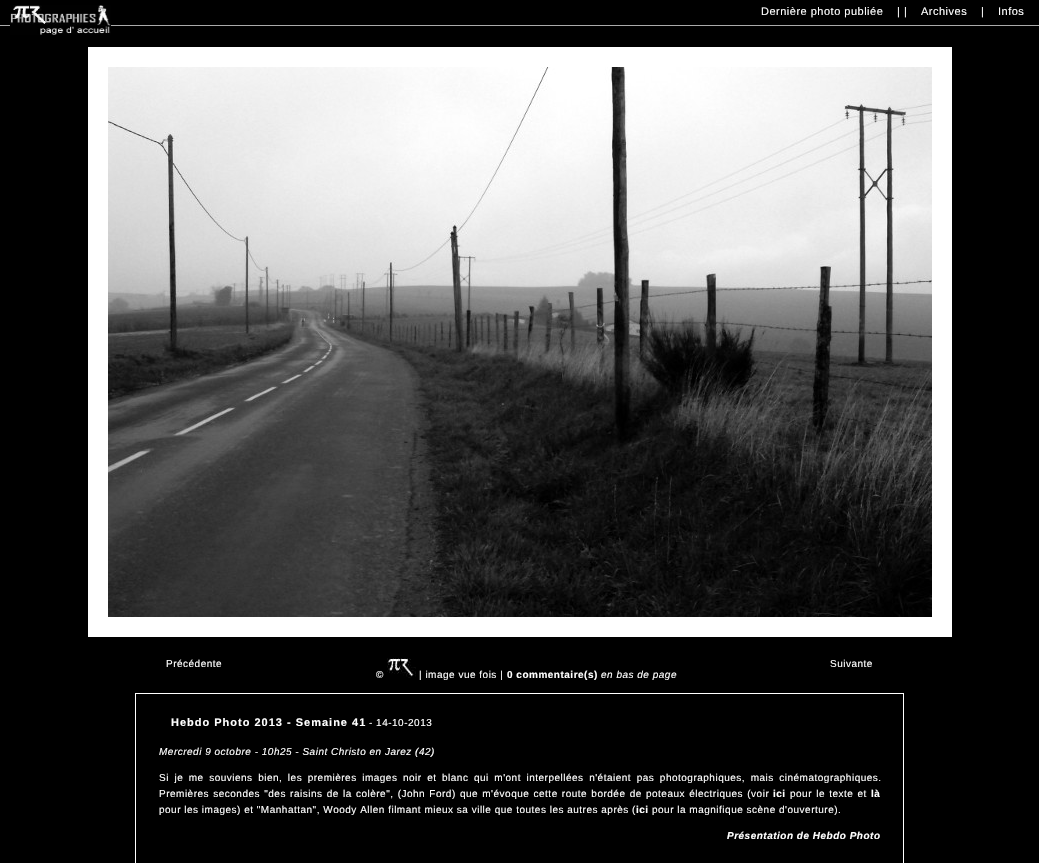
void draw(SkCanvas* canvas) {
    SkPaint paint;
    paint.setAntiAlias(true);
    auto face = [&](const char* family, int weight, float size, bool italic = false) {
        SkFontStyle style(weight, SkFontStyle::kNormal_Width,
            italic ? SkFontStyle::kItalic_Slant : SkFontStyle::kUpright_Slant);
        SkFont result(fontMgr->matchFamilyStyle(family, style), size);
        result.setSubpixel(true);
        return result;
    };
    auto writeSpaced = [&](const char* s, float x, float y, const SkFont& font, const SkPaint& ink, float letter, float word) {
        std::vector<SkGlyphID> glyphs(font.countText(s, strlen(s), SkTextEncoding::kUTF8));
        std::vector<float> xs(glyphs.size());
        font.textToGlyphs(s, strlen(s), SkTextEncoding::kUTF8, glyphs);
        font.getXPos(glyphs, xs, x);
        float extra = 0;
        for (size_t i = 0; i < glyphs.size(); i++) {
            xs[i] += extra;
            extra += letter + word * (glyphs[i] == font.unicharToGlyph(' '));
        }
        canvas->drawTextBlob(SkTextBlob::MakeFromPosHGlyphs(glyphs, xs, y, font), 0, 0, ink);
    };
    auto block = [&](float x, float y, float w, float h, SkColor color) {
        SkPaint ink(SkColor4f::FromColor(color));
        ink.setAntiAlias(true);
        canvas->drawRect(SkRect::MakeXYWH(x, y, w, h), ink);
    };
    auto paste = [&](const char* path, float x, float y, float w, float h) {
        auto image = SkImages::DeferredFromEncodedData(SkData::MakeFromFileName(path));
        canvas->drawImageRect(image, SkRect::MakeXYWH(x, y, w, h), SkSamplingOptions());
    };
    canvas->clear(SK_ColorBLACK);
    block(0, 25, 1039, 1, SkColorSetRGB(170, 170, 170));
    paste("pic1.png", 10, 5, 101, 30);
    auto kFont1 = face("Liberation Sans", 400, 11);
    paint.setColor(SK_ColorWHITE);
    writeSpaced("Dernière photo publiée", 761, 15, kFont1, paint, 0.5f, 0);
    writeSpaced("| |", 897, 15, kFont1, paint, 0.5f, 0);
    writeSpaced("Archives", 921, 15, kFont1, paint, 0.5f, 0);
    writeSpaced("|", 981, 15, kFont1, paint, 0.5f, 0);
    writeSpaced("Infos", 998, 15, kFont1, paint, 0.5f, 0);
    block(88, 47, 864, 590, SK_ColorWHITE);
    paste("pic2.png", 108, 67, 824, 550);
    auto kFont2 = face("Liberation Sans", 400, 10);
    writeSpaced("Précédente", 166, 667, kFont2, paint, 0.5f, 0);
    paste("pic3.png", 387, 658, 29, 20);
    writeSpaced("Suivante", 830, 667, kFont2, paint, 0.5f, 0);
    writeSpaced("©", 376, 678, kFont2, paint, 0.5f, 0);
    writeSpaced("| image vue fois |", 419, 678, kFont2, paint, 0.5f, 0);
    auto kFont3 = face("Liberation Sans", 700, 10);
    writeSpaced("0 commentaire(s)", 507, 678, kFont3, paint, 0.5f, 0);
    auto kFont4 = face("Liberation Sans", 400, 10, true);
    writeSpaced("en bas de page", 601, 678, kFont4, paint, 0.5f, 0);
    paint.setStyle(SkPaint::kStroke_Style);
    paint.setStrokeWidth(1);
    canvas->drawRect(SkRect::MakeXYWH(135.5f, 693.5f, 768, 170), paint);
    auto kFont5 = face("Liberation Sans", 700, 11);
    paint.setStyle(SkPaint::kFill_Style);
    writeSpaced("Hebdo Photo 2013 - Semaine 41", 171, 726, kFont5, paint, 1, 0);
    writeSpaced("- 14-10-2013", 369, 726, kFont2, paint, 0.5f, 0);
    writeSpaced("Mercredi 9 octobre - 10h25 - Saint Christo en Jarez (42)", 159, 755, kFont4, paint, 0.5f, 0);
    writeSpaced("Si je me souviens bien, les premières images noir et blanc qui m'ont interpellées n'étaient pas photographiques, mais cinématographiques.", 159, 781, kFont2, paint, 0.5f, 2.25f);
    writeSpaced("Premières secondes \"des raisins de la colère\", (John Ford) que m'évoque cette route bordée de poteaux électriques (voir", 159, 797, kFont2, paint, 0.5f, 0.9f);
    writeSpaced("ici", 773, 797, kFont3, paint, 0.5f, 0);
    writeSpaced("pour le texte et", 790, 797, kFont2, paint, 0.5f, 0.9f);
    writeSpaced("là", 871, 797, kFont3, paint, 0.5f, 0);
    writeSpaced("pour les images) et \"Manhattan\", Woody Allen filmant mieux sa ville que toutes les autres après (", 159, 813, kFont2, paint, 0.5f, 0);
    writeSpaced("ici", 636, 813, kFont3, paint, 0.5f, 0);
    writeSpaced("pour la magnifique scène d'ouverture).", 652, 813, kFont2, paint, 0.5f, 0);
    auto kFont6 = face("Liberation Sans", 700, 10, true);
    writeSpaced("Présentation de Hebdo Photo", 727, 839, kFont6, paint, 0.5f, 0);
}
